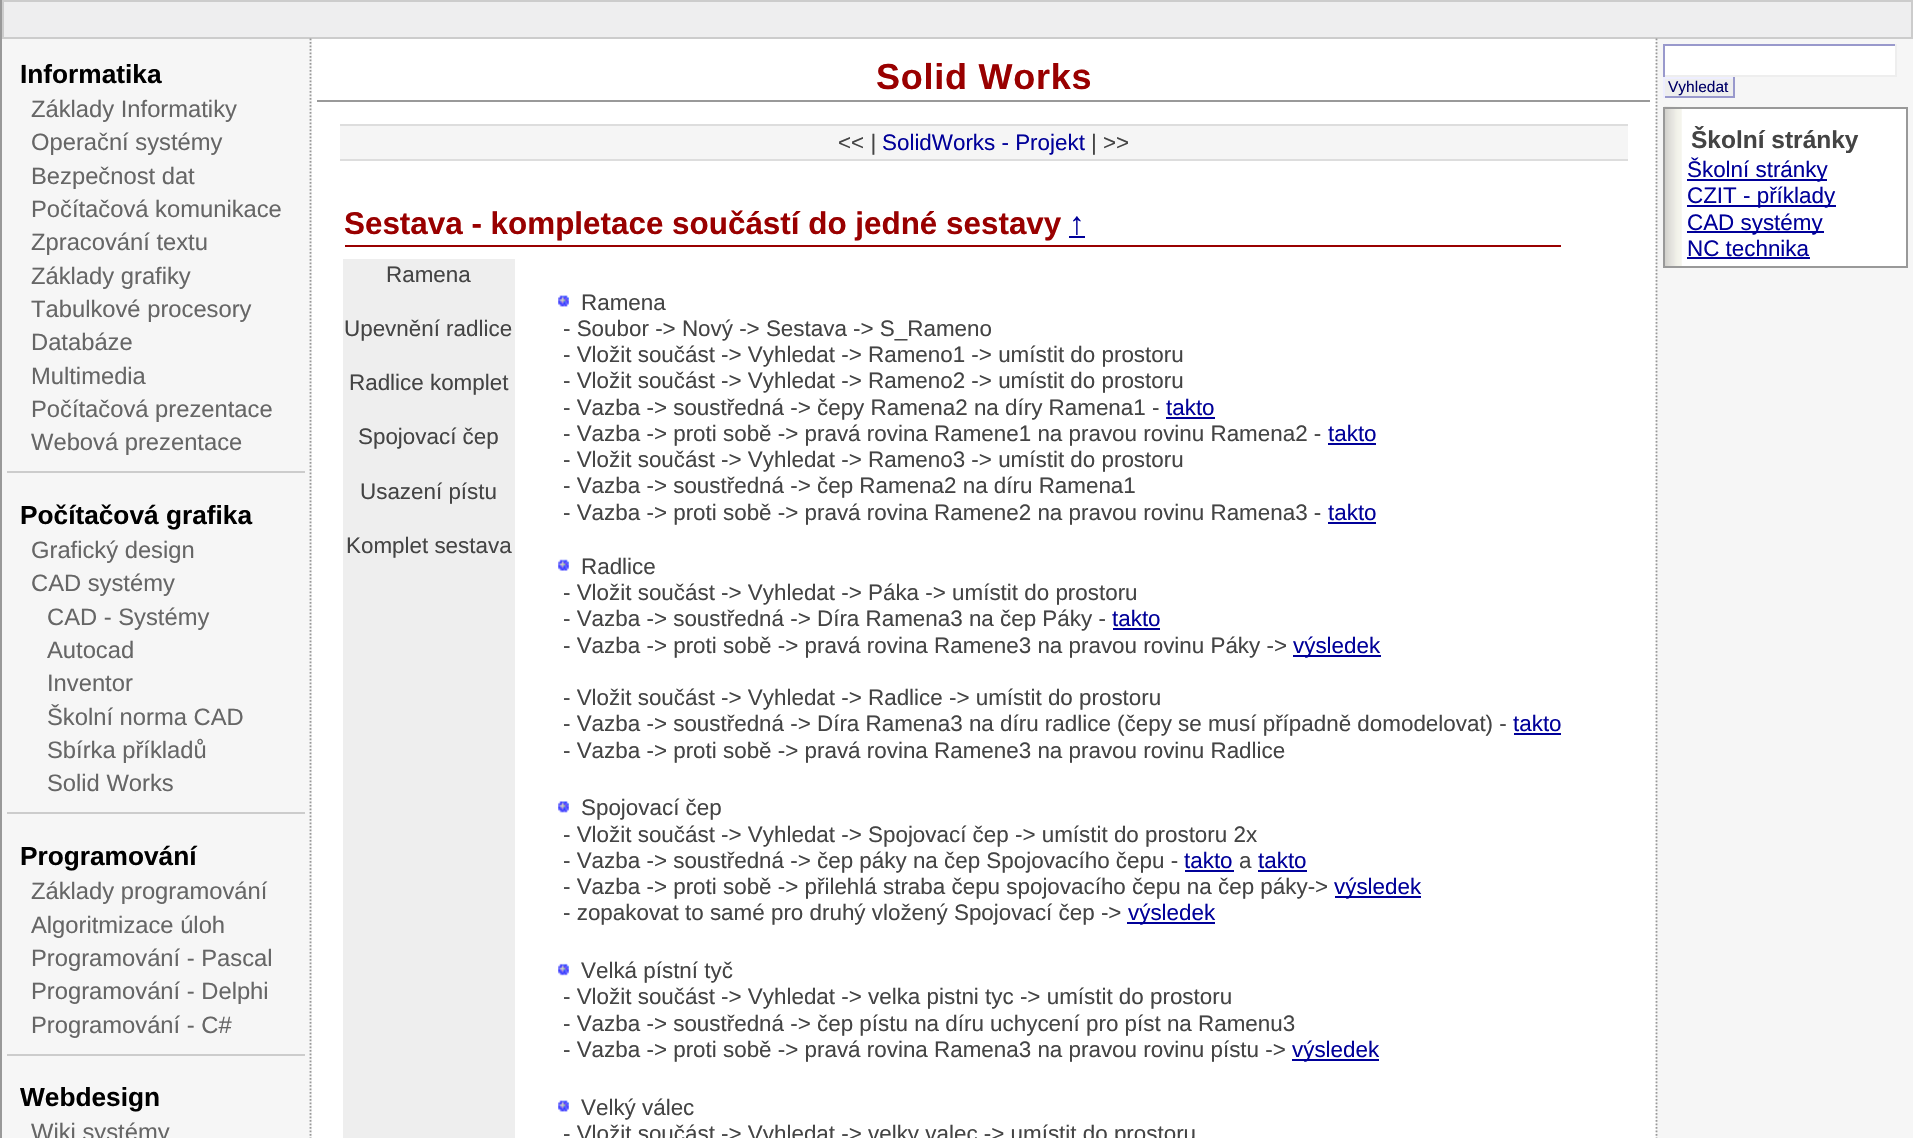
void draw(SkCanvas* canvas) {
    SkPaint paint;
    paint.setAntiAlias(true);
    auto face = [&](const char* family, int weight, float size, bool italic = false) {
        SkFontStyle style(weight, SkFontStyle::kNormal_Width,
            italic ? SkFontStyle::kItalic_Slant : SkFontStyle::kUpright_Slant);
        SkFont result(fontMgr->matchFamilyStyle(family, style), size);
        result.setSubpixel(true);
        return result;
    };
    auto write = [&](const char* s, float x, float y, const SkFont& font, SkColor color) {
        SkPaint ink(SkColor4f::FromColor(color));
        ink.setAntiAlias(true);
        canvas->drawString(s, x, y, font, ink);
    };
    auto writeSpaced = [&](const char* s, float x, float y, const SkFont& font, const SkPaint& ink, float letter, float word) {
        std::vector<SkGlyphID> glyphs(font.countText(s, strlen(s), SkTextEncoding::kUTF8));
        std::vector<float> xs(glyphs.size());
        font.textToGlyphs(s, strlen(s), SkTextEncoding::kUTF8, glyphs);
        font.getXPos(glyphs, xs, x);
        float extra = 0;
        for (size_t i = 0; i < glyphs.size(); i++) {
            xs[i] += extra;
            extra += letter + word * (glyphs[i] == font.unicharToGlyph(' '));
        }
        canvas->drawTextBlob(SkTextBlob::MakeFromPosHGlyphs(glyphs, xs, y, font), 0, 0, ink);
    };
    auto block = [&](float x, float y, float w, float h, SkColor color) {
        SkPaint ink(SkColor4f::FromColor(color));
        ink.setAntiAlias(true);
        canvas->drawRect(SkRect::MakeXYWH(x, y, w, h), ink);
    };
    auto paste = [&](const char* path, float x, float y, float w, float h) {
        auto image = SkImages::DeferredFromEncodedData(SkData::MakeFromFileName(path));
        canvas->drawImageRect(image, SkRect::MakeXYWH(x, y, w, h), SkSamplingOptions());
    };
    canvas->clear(SkColorSetRGB(238, 238, 239));
    paint.setStyle(SkPaint::kStroke_Style);
    paint.setStrokeWidth(2);
    paint.setColor(SkColorSetRGB(153, 153, 153));
    canvas->drawRect(SkRect::MakeXYWH(1, 1, 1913, 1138), paint);
    paint.setColor(SkColorSetRGB(204, 204, 204));
    canvas->drawRect(SkRect::MakeXYWH(3, 1, 1909, 37), paint);
    block(2, 39, 310, 1099, SkColorSetRGB(246, 246, 246));
    paint.setStrokeWidth(1.8f);
    paint.setColor(SkColorSetRGB(153, 153, 153));
    paint.setPathEffect(SkDashPathEffect::Make({{1.75f, 1.75f}}, 0));
    canvas->drawPath(SkPathBuilder().moveTo(310.5f, 38.5f).lineTo(310.5f, 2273).detach(), paint);
    paint.setPathEffect(nullptr);
    auto kFont1 = face("Liberation Sans", 700, 26.25f);
    write("Informatika", 20, 83, kFont1, SK_ColorBLACK);
    auto kFont2 = face("Liberation Sans", 400, 23.75f);
    write("Základy Informatiky", 31, 117, kFont2, SkColorSetRGB(102, 102, 102));
    write("Operační systémy", 31, 150, kFont2, SkColorSetRGB(102, 102, 102));
    write("Bezpečnost dat", 31, 184, kFont2, SkColorSetRGB(102, 102, 102));
    write("Počítačová komunikace", 31, 217, kFont2, SkColorSetRGB(102, 102, 102));
    write("Zpracování textu", 31, 250, kFont2, SkColorSetRGB(102, 102, 102));
    write("Základy grafiky", 31, 284, kFont2, SkColorSetRGB(102, 102, 102));
    write("Tabulkové procesory", 31, 317, kFont2, SkColorSetRGB(102, 102, 102));
    write("Databáze", 31, 350, kFont2, SkColorSetRGB(102, 102, 102));
    write("Multimedia", 31, 384, kFont2, SkColorSetRGB(102, 102, 102));
    write("Počítačová prezentace", 31, 417, kFont2, SkColorSetRGB(102, 102, 102));
    write("Webová prezentace", 31, 450, kFont2, SkColorSetRGB(102, 102, 102));
    block(7, 471, 298, 2, SkColorSetRGB(204, 204, 204));
    write("Počítačová grafika", 20, 524, kFont1, SK_ColorBLACK);
    write("Grafický design", 31, 558, kFont2, SkColorSetRGB(102, 102, 102));
    write("CAD systémy", 31, 591, kFont2, SkColorSetRGB(102, 102, 102));
    write("CAD - Systémy", 47, 625, kFont2, SkColorSetRGB(102, 102, 102));
    write("Autocad", 47, 658, kFont2, SkColorSetRGB(102, 102, 102));
    write("Inventor", 47, 691, kFont2, SkColorSetRGB(102, 102, 102));
    write("Školní norma CAD", 47, 725, kFont2, SkColorSetRGB(102, 102, 102));
    write("Sbírka příkladů", 47, 758, kFont2, SkColorSetRGB(102, 102, 102));
    write("Solid Works", 47, 791, kFont2, SkColorSetRGB(102, 102, 102));
    block(7, 812, 298, 2, SkColorSetRGB(204, 204, 204));
    write("Programování", 20, 865, kFont1, SK_ColorBLACK);
    write("Základy programování", 31, 899, kFont2, SkColorSetRGB(102, 102, 102));
    write("Algoritmizace úloh", 31, 933, kFont2, SkColorSetRGB(102, 102, 102));
    write("Programování - Pascal", 31, 966, kFont2, SkColorSetRGB(102, 102, 102));
    write("Programování - Delphi", 31, 999, kFont2, SkColorSetRGB(102, 102, 102));
    write("Programování - C#", 31, 1033, kFont2, SkColorSetRGB(102, 102, 102));
    block(7, 1054, 298, 2, SkColorSetRGB(204, 204, 204));
    write("Webdesign", 20, 1106, kFont1, SK_ColorBLACK);
    write("Wiki systémy", 31, 1140, kFont2, SkColorSetRGB(102, 102, 102));
    block(312, 39, 1344, 1099, SK_ColorWHITE);
    block(317, 100, 1333, 2, SkColorSetRGB(153, 153, 153));
    auto kFont3 = face("Liberation Sans", 700, 36);
    paint.setStyle(SkPaint::kFill_Style);
    paint.setColor(SkColorSetRGB(153, 0, 0));
    writeSpaced("Solid Works", 876, 89, kFont3, paint, 0.75f, 0);
    block(340, 126, 1288, 33, SkColorSetRGB(245, 245, 245));
    block(340, 124, 1288, 2, SkColorSetRGB(221, 221, 221));
    block(340, 159, 1288, 2, SkColorSetRGB(221, 221, 221));
    auto kFont4 = face("Liberation Sans", 400, 22.4f);
    write("<< |", 838, 150, kFont4, SkColorSetRGB(68, 68, 68));
    write("SolidWorks - Projekt", 882, 150, kFont4, SkColorSetRGB(0, 0, 153));
    write("| >>", 1091, 150, kFont4, SkColorSetRGB(68, 68, 68));
    block(345, 245, 1216, 2, SkColorSetRGB(153, 0, 0));
    auto kFont5 = face("Liberation Sans", 700, 31.4f);
    write("Sestava - kompletace součástí do jedné sestavy", 344, 234, kFont5, SkColorSetRGB(153, 0, 0));
    write("↑", 1069, 234, kFont5, SkColorSetRGB(0, 0, 153));
    block(1069, 236, 16, 2, SkColorSetRGB(0, 0, 153));
    block(343, 259, 172, 879, SkColorSetRGB(238, 238, 238));
    write("Ramena", 386, 282, kFont4, SkColorSetRGB(68, 68, 68));
    write("Upevnění radlice", 344, 336, kFont4, SkColorSetRGB(68, 68, 68));
    write("Radlice komplet", 349, 390, kFont4, SkColorSetRGB(68, 68, 68));
    write("Spojovací čep", 358, 444, kFont4, SkColorSetRGB(68, 68, 68));
    write("Usazení pístu", 360, 499, kFont4, SkColorSetRGB(68, 68, 68));
    write("Komplet sestava", 346, 553, kFont4, SkColorSetRGB(68, 68, 68));
    paste("pic1.png", 558, 295, 11, 12);
    write("Ramena", 581, 310, kFont4, SkColorSetRGB(68, 68, 68));
    write("- Soubor -> Nový -> Sestava -> S_Rameno", 563, 336, kFont4, SkColorSetRGB(68, 68, 68));
    write("- Vložit součást -> Vyhledat -> Rameno1 -> umístit do prostoru", 563, 362, kFont4, SkColorSetRGB(68, 68, 68));
    write("- Vložit součást -> Vyhledat -> Rameno2 -> umístit do prostoru", 563, 388, kFont4, SkColorSetRGB(68, 68, 68));
    write("- Vazba -> soustředná -> čepy Ramena2 na díry Ramena1 -", 563, 415, kFont4, SkColorSetRGB(68, 68, 68));
    write("takto", 1166, 415, kFont4, SkColorSetRGB(0, 0, 153));
    block(1166, 417, 49, 2, SkColorSetRGB(0, 0, 153));
    write("- Vazba -> proti sobě -> pravá rovina Ramene1 na pravou rovinu Ramena2 -", 563, 441, kFont4, SkColorSetRGB(68, 68, 68));
    write("takto", 1328, 441, kFont4, SkColorSetRGB(0, 0, 153));
    block(1328, 443, 48, 2, SkColorSetRGB(0, 0, 153));
    write("- Vložit součást -> Vyhledat -> Rameno3 -> umístit do prostoru", 563, 467, kFont4, SkColorSetRGB(68, 68, 68));
    write("- Vazba -> soustředná -> čep Ramena2 na díru Ramena1", 563, 493, kFont4, SkColorSetRGB(68, 68, 68));
    write("- Vazba -> proti sobě -> pravá rovina Ramene2 na pravou rovinu Ramena3 -", 563, 520, kFont4, SkColorSetRGB(68, 68, 68));
    write("takto", 1328, 520, kFont4, SkColorSetRGB(0, 0, 153));
    block(1328, 522, 48, 2, SkColorSetRGB(0, 0, 153));
    paste("pic2.png", 558, 559, 11, 12);
    write("Radlice", 581, 574, kFont4, SkColorSetRGB(68, 68, 68));
    write("- Vložit součást -> Vyhledat -> Páka -> umístit do prostoru", 563, 600, kFont4, SkColorSetRGB(68, 68, 68));
    write("- Vazba -> soustředná -> Díra Ramena3 na čep Páky -", 563, 626, kFont4, SkColorSetRGB(68, 68, 68));
    write("takto", 1112, 626, kFont4, SkColorSetRGB(0, 0, 153));
    block(1113, 628, 47, 2, SkColorSetRGB(0, 0, 153));
    write("- Vazba -> proti sobě -> pravá rovina Ramene3 na pravou rovinu Páky ->", 563, 653, kFont4, SkColorSetRGB(68, 68, 68));
    block(1293, 655, 88, 2, SkColorSetRGB(0, 0, 153));
    write("výsledek", 1293, 653, kFont4, SkColorSetRGB(0, 0, 153));
    write("- Vložit součást -> Vyhledat -> Radlice -> umístit do prostoru", 563, 705, kFont4, SkColorSetRGB(68, 68, 68));
    write("- Vazba -> soustředná -> Díra Ramena3 na díru radlice (čepy se musí případně domodelovat) -", 563, 731, kFont4, SkColorSetRGB(68, 68, 68));
    write("takto", 1513, 731, kFont4, SkColorSetRGB(0, 0, 153));
    block(1514, 733, 47, 2, SkColorSetRGB(0, 0, 153));
    write("- Vazba -> proti sobě -> pravá rovina Ramene3 na pravou rovinu Radlice", 563, 758, kFont4, SkColorSetRGB(68, 68, 68));
    paste("pic3.png", 558, 801, 11, 12);
    write("Spojovací čep", 581, 815, kFont4, SkColorSetRGB(68, 68, 68));
    write("- Vložit součást -> Vyhledat -> Spojovací čep -> umístit do prostoru 2x", 563, 842, kFont4, SkColorSetRGB(68, 68, 68));
    write("- Vazba -> soustředná -> čep páky na čep Spojovacího čepu -", 563, 868, kFont4, SkColorSetRGB(68, 68, 68));
    write("takto", 1184, 868, kFont4, SkColorSetRGB(0, 0, 153));
    block(1185, 870, 49, 2, SkColorSetRGB(0, 0, 153));
    write("a", 1239, 868, kFont4, SkColorSetRGB(68, 68, 68));
    write("takto", 1258, 868, kFont4, SkColorSetRGB(0, 0, 153));
    block(1258, 870, 49, 2, SkColorSetRGB(0, 0, 153));
    write("- Vazba -> proti sobě -> přilehlá straba čepu spojovacího čepu na čep páky->", 563, 894, kFont4, SkColorSetRGB(68, 68, 68));
    block(1335, 896, 86, 2, SkColorSetRGB(0, 0, 153));
    write("výsledek", 1334, 894, kFont4, SkColorSetRGB(0, 0, 153));
    write("- zopakovat to samé pro druhý vložený Spojovací čep ->", 563, 920, kFont4, SkColorSetRGB(68, 68, 68));
    block(1127, 922, 88, 2, SkColorSetRGB(0, 0, 153));
    write("výsledek", 1128, 920, kFont4, SkColorSetRGB(0, 0, 153));
    paste("pic4.png", 558, 963, 11, 13);
    write("Velká pístní tyč", 581, 978, kFont4, SkColorSetRGB(68, 68, 68));
    write("- Vložit součást -> Vyhledat -> velka pistni tyc -> umístit do prostoru", 563, 1004, kFont4, SkColorSetRGB(68, 68, 68));
    write("- Vazba -> soustředná -> čep pístu na díru uchycení pro píst na Ramenu3", 563, 1031, kFont4, SkColorSetRGB(68, 68, 68));
    write("- Vazba -> proti sobě -> pravá rovina Ramena3 na pravou rovinu pístu ->", 563, 1057, kFont4, SkColorSetRGB(68, 68, 68));
    block(1292, 1059, 87, 2, SkColorSetRGB(0, 0, 153));
    write("výsledek", 1292, 1057, kFont4, SkColorSetRGB(0, 0, 153));
    paste("pic1.png", 558, 1100, 11, 12);
    write("Velký válec", 581, 1115, kFont4, SkColorSetRGB(68, 68, 68));
    write("- Vložit součást -> Vyhledat -> velky valec -> umístit do prostoru", 563, 1141, kFont4, SkColorSetRGB(68, 68, 68));
    block(1656, 39, 257, 1099, SkColorSetRGB(246, 246, 246));
    paint.setStyle(SkPaint::kStroke_Style);
    paint.setColor(SkColorSetRGB(153, 153, 153));
    paint.setPathEffect(SkDashPathEffect::Make({{1.75f, 1.75f}}, 0));
    canvas->drawPath(SkPathBuilder().moveTo(1656.5f, 38.5f).lineTo(1656.5f, 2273).detach(), paint);
    paint.setPathEffect(nullptr);
    block(1665, 46, 230, 29, SK_ColorWHITE);
    block(1663, 44, 234, 2, SkColorSetRGB(153, 153, 204));
    block(1895, 44, 2, 33, SkColorSetRGB(238, 238, 238));
    block(1663, 75, 234, 2, SkColorSetRGB(238, 238, 238));
    block(1663, 44, 2, 33, SkColorSetRGB(153, 153, 204));
    block(1665, 79, 68, 17, SkColorSetRGB(238, 238, 238));
    block(1663, 77, 71, 2, SkColorSetRGB(238, 238, 255));
    block(1733, 77, 2, 21, SkColorSetRGB(153, 153, 204));
    block(1663, 96, 71, 2, SkColorSetRGB(153, 153, 204));
    block(1663, 77, 2, 21, SkColorSetRGB(238, 238, 255));
    auto kFont6 = face("Liberation Sans", 400, 15.5f);
    write("Vyhledat", 1668, 92, kFont6, SkColorSetRGB(0, 0, 102));
    block(1681, 109, 225, 157, SK_ColorWHITE);
    paste("pic5.png", 1664, 106, 18, 160);
    paint.setStrokeWidth(2);
    canvas->drawRect(SkRect::MakeXYWH(1664, 108, 243, 159), paint);
    auto kFont7 = face("Liberation Sans", 700, 24.5f);
    write("Školní stránky", 1691, 148, kFont7, SkColorSetRGB(68, 68, 68));
    block(1687, 179, 140, 2, SkColorSetRGB(0, 0, 153));
    write("Školní stránky", 1687, 177, kFont4, SkColorSetRGB(0, 0, 153));
    block(1687, 205, 149, 2, SkColorSetRGB(0, 0, 153));
    write("CZIT - příklady", 1687, 203, kFont4, SkColorSetRGB(0, 0, 153));
    block(1687, 231, 137, 2, SkColorSetRGB(0, 0, 153));
    write("CAD systémy", 1687, 230, kFont4, SkColorSetRGB(0, 0, 153));
    write("NC technika", 1687, 256, kFont4, SkColorSetRGB(0, 0, 153));
    block(1687, 257, 123, 2, SkColorSetRGB(0, 0, 153));
}
